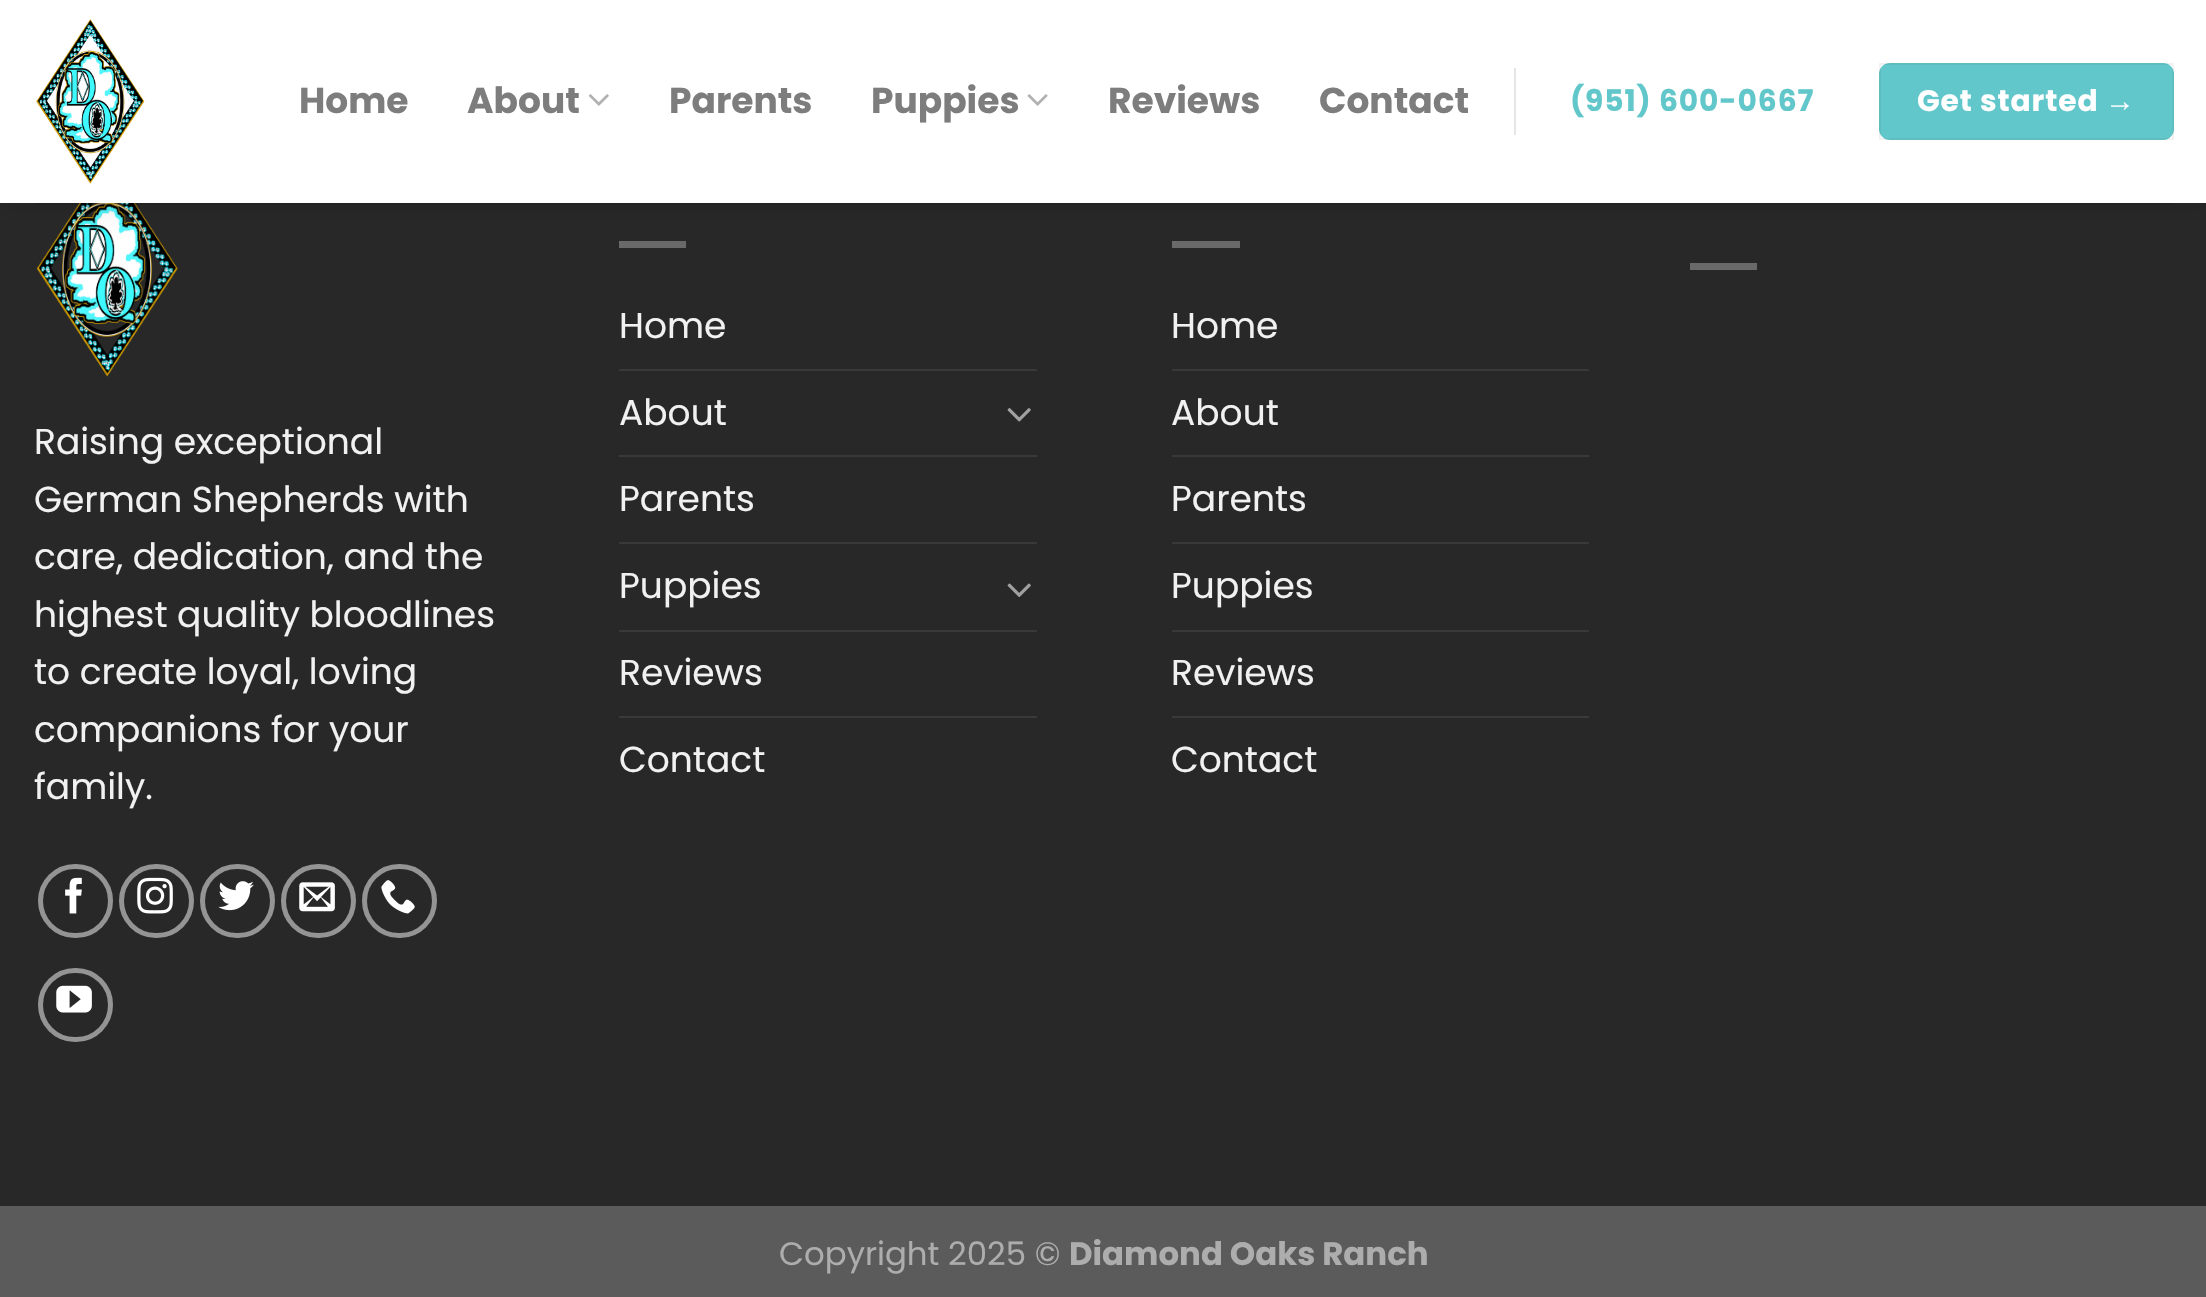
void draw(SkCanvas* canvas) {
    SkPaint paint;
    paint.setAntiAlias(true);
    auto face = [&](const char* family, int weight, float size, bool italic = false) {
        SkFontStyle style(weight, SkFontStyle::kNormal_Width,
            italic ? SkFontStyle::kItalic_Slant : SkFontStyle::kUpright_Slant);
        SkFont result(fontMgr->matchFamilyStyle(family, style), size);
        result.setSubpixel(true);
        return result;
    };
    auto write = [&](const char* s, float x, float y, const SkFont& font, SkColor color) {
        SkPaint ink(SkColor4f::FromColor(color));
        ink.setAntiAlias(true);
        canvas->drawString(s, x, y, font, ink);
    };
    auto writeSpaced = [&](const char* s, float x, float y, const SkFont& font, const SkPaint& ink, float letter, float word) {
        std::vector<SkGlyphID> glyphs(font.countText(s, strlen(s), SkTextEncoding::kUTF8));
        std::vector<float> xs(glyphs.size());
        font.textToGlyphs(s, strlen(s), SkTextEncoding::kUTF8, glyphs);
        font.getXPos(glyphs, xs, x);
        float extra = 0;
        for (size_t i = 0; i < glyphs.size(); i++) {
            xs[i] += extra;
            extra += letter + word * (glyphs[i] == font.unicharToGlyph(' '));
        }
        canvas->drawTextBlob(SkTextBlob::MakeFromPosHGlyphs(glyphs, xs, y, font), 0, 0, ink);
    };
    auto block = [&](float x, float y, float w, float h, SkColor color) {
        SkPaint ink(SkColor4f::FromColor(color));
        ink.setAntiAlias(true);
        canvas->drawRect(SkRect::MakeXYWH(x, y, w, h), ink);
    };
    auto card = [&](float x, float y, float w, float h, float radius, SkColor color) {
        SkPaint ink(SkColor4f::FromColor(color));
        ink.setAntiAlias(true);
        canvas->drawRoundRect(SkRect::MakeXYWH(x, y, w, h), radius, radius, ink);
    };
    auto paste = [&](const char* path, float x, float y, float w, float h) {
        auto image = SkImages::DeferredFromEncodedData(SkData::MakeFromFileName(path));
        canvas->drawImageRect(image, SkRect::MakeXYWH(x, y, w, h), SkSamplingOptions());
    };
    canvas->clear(SkColorSetRGB(91, 91, 91));
    block(0, 203, 2206, 1003, SkColorSetRGB(40, 40, 40));
    paste("pic4.png", 36, 203, 142, 174);
    paint.setColor(SkColorSetARGB(38, 0, 0, 0));
    paint.setMaskFilter(SkMaskFilter::MakeBlur(kNormal_SkBlurStyle, 11));
    canvas->drawRect(SkRect::MakeXYWH(2, 2, 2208, 203), paint);
    paint.setMaskFilter(nullptr);
    block(0, 0, 2206, 203, SK_ColorWHITE);
    paste("pic1.png", 36, 19, 109, 165);
    auto kFont1 = face("Poppins", 700, 36);
    write("Home", 299, 113, kFont1, SkColorSetRGB(125, 125, 125));
    write("About", 467, 113, kFont1, SkColorSetRGB(125, 125, 125));
    paste("pic2.png", 588, 94, 21, 12);
    write("Parents", 669, 113, kFont1, SkColorSetRGB(125, 125, 125));
    write("Puppies", 871, 113, kFont1, SkColorSetRGB(125, 125, 125));
    paste("pic3.png", 1027, 94, 21, 12);
    write("Reviews", 1108, 113, kFont1, SkColorSetRGB(125, 125, 125));
    write("Contact", 1319, 113, kFont1, SkColorSetRGB(125, 125, 125));
    block(1514, 68, 2, 67, SkColorSetRGB(230, 230, 230));
    auto kFont2 = face("Poppins", 700, 29.75f);
    paint.setColor(SkColorSetRGB(98, 199, 202));
    writeSpaced("(951) 600-0667", 1570, 111, kFont2, paint, 0.9f, 0);
    card(1879, 63, 295, 77, 11, SkColorSetRGB(98, 199, 202));
    paint.setStyle(SkPaint::kStroke_Style);
    paint.setStrokeWidth(2);
    paint.setColor(SkColorSetARGB(13, 0, 0, 0));
    canvas->drawRect(SkRect::MakeXYWH(1880, 64, 293, 75), paint);
    paint.setStyle(SkPaint::kFill_Style);
    paint.setColor(SK_ColorWHITE);
    writeSpaced("Get started", 1917, 111, kFont2, paint, 0.9f, 0);
    auto kFont3 = face("Liberation Sans", 700, 29.75f);
    writeSpaced("→", 2105, 111, kFont3, paint, 0.9f, 0);
    block(34, 203, 2140, 2, SkColorSetARGB(26, 0, 0, 0));
    block(1690, 263, 67, 7, SkColorSetRGB(105, 105, 105));
    auto kFont4 = face("Poppins", 400, 36);
    write("Raising exceptional", 34, 454, kFont4, SkColorSetRGB(241, 241, 241));
    write("German Shepherds with", 34, 512, kFont4, SkColorSetRGB(241, 241, 241));
    write("care, dedication, and the", 34, 569, kFont4, SkColorSetRGB(241, 241, 241));
    write("highest quality bloodlines", 34, 627, kFont4, SkColorSetRGB(241, 241, 241));
    write("to create loyal, loving", 34, 684, kFont4, SkColorSetRGB(241, 241, 241));
    write("companions for your", 34, 742, kFont4, SkColorSetRGB(241, 241, 241));
    write("family.", 34, 799, kFont4, SkColorSetRGB(241, 241, 241));
    paint.setStyle(SkPaint::kStroke_Style);
    paint.setStrokeWidth(5);
    paint.setColor(SkColorSetRGB(148, 148, 148));
    canvas->drawRoundRect(SkRect::MakeXYWH(40.5f, 866.5f, 70, 69), 34.5f, 34.5f, paint);
    paste("pic5.png", 65, 877, 17, 37);
    canvas->drawRoundRect(SkRect::MakeXYWH(121.5f, 866.5f, 70, 69), 34.5f, 34.5f, paint);
    paste("pic6.png", 137, 877, 36, 37);
    canvas->drawRoundRect(SkRect::MakeXYWH(202.5f, 866.5f, 70, 69), 34.5f, 34.5f, paint);
    paste("pic7.png", 218, 881, 36, 30);
    canvas->drawRoundRect(SkRect::MakeXYWH(283.5f, 866.5f, 70, 69), 34.5f, 34.5f, paint);
    paste("pic8.png", 299, 882, 36, 30);
    canvas->drawRoundRect(SkRect::MakeXYWH(364.5f, 866.5f, 70, 69), 34.5f, 34.5f, paint);
    paste("pic9.png", 381, 880, 34, 34);
    canvas->drawRoundRect(SkRect::MakeXYWH(40.5f, 970.5f, 70, 69), 34.5f, 34.5f, paint);
    paste("pic10.png", 56, 985, 36, 28);
    block(619, 241, 67, 7, SkColorSetRGB(105, 105, 105));
    write("Home", 619, 338, kFont4, SkColorSetRGB(241, 241, 241));
    block(619, 369, 418, 2, SkColorSetRGB(57, 57, 57));
    write("About", 619, 425, kFont4, SkColorSetRGB(241, 241, 241));
    paste("pic11.png", 1007, 408, 24, 14);
    block(619, 455, 418, 2, SkColorSetRGB(57, 57, 57));
    write("Parents", 619, 511, kFont4, SkColorSetRGB(241, 241, 241));
    block(619, 542, 418, 2, SkColorSetRGB(57, 57, 57));
    write("Puppies", 619, 598, kFont4, SkColorSetRGB(241, 241, 241));
    paste("pic12.png", 1007, 583, 24, 14);
    block(619, 630, 418, 2, SkColorSetRGB(57, 57, 57));
    write("Reviews", 619, 685, kFont4, SkColorSetRGB(241, 241, 241));
    block(619, 716, 418, 2, SkColorSetRGB(57, 57, 57));
    write("Contact", 619, 772, kFont4, SkColorSetRGB(241, 241, 241));
    block(1172, 241, 68, 7, SkColorSetRGB(105, 105, 105));
    write("Home", 1171, 338, kFont4, SkColorSetRGB(241, 241, 241));
    block(1172, 369, 417, 2, SkColorSetRGB(57, 57, 57));
    write("About", 1171, 425, kFont4, SkColorSetRGB(241, 241, 241));
    block(1172, 455, 417, 2, SkColorSetRGB(57, 57, 57));
    write("Parents", 1171, 511, kFont4, SkColorSetRGB(241, 241, 241));
    block(1172, 542, 417, 2, SkColorSetRGB(57, 57, 57));
    write("Puppies", 1171, 598, kFont4, SkColorSetRGB(241, 241, 241));
    block(1172, 630, 417, 2, SkColorSetRGB(57, 57, 57));
    write("Reviews", 1171, 685, kFont4, SkColorSetRGB(241, 241, 241));
    block(1172, 716, 417, 2, SkColorSetRGB(57, 57, 57));
    write("Contact", 1171, 772, kFont4, SkColorSetRGB(241, 241, 241));
    auto kFont5 = face("Poppins", 400, 32.4f);
    write("Copyright 2025 ©", 779, 1265, kFont5, SkColorSetRGB(173, 173, 173));
    auto kFont6 = face("Poppins", 700, 32.4f);
    write("Diamond Oaks Ranch", 1069, 1265, kFont6, SkColorSetRGB(173, 173, 173));
}
